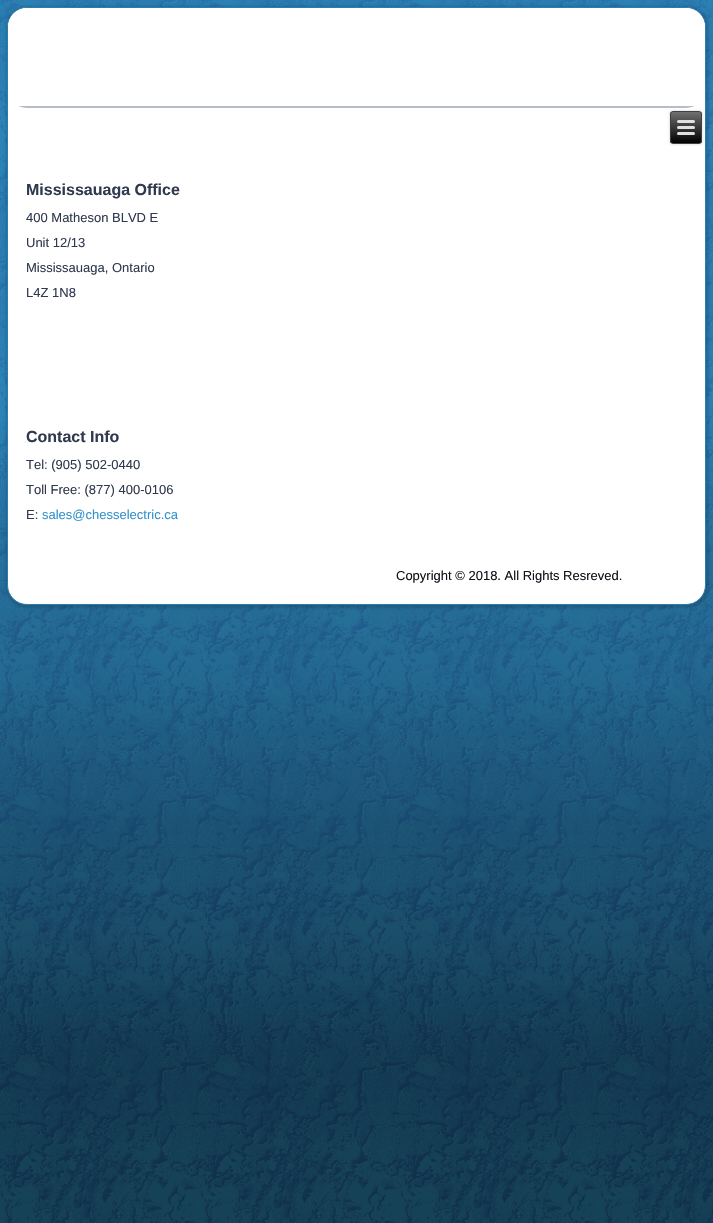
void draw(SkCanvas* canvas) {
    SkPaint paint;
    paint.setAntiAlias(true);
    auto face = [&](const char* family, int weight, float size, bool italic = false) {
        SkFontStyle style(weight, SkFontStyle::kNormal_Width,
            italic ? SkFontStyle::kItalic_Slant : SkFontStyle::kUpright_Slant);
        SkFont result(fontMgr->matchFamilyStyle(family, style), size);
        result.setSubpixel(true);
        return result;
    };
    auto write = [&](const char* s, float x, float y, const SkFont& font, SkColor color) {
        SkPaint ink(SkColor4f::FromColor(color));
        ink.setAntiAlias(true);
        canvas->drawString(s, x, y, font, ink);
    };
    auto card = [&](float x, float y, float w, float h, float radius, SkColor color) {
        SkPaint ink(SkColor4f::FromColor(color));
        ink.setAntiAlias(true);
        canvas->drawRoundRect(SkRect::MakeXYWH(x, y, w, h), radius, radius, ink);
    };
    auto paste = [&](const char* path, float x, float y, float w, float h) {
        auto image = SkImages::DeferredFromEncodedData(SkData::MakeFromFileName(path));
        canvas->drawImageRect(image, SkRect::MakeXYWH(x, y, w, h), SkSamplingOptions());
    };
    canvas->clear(SK_ColorWHITE);
    paste("pic1.png", 0, 0, 713, 1223);
    paint.setColor(SkColorSetARGB(38, 0, 0, 0));
    paint.setMaskFilter(SkMaskFilter::MakeBlur(kNormal_SkBlurStyle, 1.5f));
    canvas->drawRoundRect(SkRect::MakeXYWH(6, 6, 703, 602), 22, 22, paint);
    paint.setMaskFilter(nullptr);
    paint.setColor(SK_ColorWHITE);
    canvas->drawRoundRect(SkRect::MakeXYWH(7.5f, 7.5f, 698, 597), 19.5f, 19.5f, paint);
    paint.setStyle(SkPaint::kStroke_Style);
    paint.setStrokeWidth(1);
    paint.setColor(SkColorSetRGB(43, 125, 177));
    canvas->drawRoundRect(SkRect::MakeXYWH(7.5f, 7.5f, 698, 597), 19.5f, 19.5f, paint);
    paste("pic2.png", 8, 8, 697, 100);
    paint.setStyle(SkPaint::kFill_Style);
    paint.setColor(SkColorSetARGB(51, 0, 0, 0));
    paint.setMaskFilter(SkMaskFilter::MakeBlur(kNormal_SkBlurStyle, 1.5f));
    canvas->drawRoundRect(SkRect::MakeXYWH(670, 111, 32, 33), 3, 3, paint);
    paint.setMaskFilter(nullptr);
    canvas->save();
    canvas->clipPath(SkPathBuilder().moveTo(673, 111).lineTo(699, 111).cubicTo(700.5f, 111, 702, 112.5f, 702, 114).lineTo(702, 141).cubicTo(702, 142.5f, 700.5f, 144, 699, 144).lineTo(673, 144).cubicTo(671.5f, 144, 670, 142.5f, 670, 141).lineTo(670, 114).cubicTo(670, 112.5f, 671.5f, 111, 673, 111).close().detach(), true);
    {
        const SkColor colors[] = {SkColorSetRGB(112, 112, 112), SK_ColorBLACK};
        const float stops[] = {0, 1};
        const SkPoint ends[] = {{686, 112}, {686, 143}};
        paint.setShader(SkGradientShader::MakeLinear(ends, colors, stops, 2, SkTileMode::kClamp));
        paint.setAlpha(255);
    }
    canvas->drawRect(SkRect::MakeXYWH(670, 112, 32, 31), paint);
    canvas->restore();
    paint.setStyle(SkPaint::kStroke_Style);
    paint.setShader(nullptr);
    paint.setColor(SkColorSetRGB(64, 64, 64));
    canvas->drawRoundRect(SkRect::MakeXYWH(670.5f, 111.5f, 31, 32), 2.5f, 2.5f, paint);
    card(677, 120, 18, 3, 1.5f, SkColorSetRGB(224, 224, 224));
    card(677, 126, 18, 3, 1.5f, SkColorSetRGB(224, 224, 224));
    card(677, 132, 18, 3, 1.5f, SkColorSetRGB(224, 224, 224));
    auto kFont1 = face("Liberation Sans", 700, 16);
    write("Mississauaga Office", 26, 195, kFont1, SkColorSetRGB(48, 58, 79));
    auto kFont2 = face("Liberation Sans", 400, 13);
    write("400 Matheson BLVD E", 26, 222, kFont2, SkColorSetRGB(48, 58, 79));
    write("Unit 12/13", 26, 247, kFont2, SkColorSetRGB(48, 58, 79));
    write("Mississauaga, Ontario", 26, 272, kFont2, SkColorSetRGB(48, 58, 79));
    write("L4Z 1N8", 26, 297, kFont2, SkColorSetRGB(48, 58, 79));
    write("Contact Info", 26, 442, kFont1, SkColorSetRGB(48, 58, 79));
    write("Tel: (905) 502-0440", 26, 469, kFont2, SkColorSetRGB(48, 58, 79));
    write("Toll Free: (877) 400-0106", 26, 494, kFont2, SkColorSetRGB(48, 58, 79));
    write("E:", 26, 519, kFont2, SkColorSetRGB(48, 58, 79));
    write("sales@chesselectric.ca", 42, 519, kFont2, SkColorSetRGB(50, 146, 205));
    write("Copyright © 2018. All Rights Resreved.", 396, 580, kFont2, SkColorSetRGB(16, 18, 25));
}
